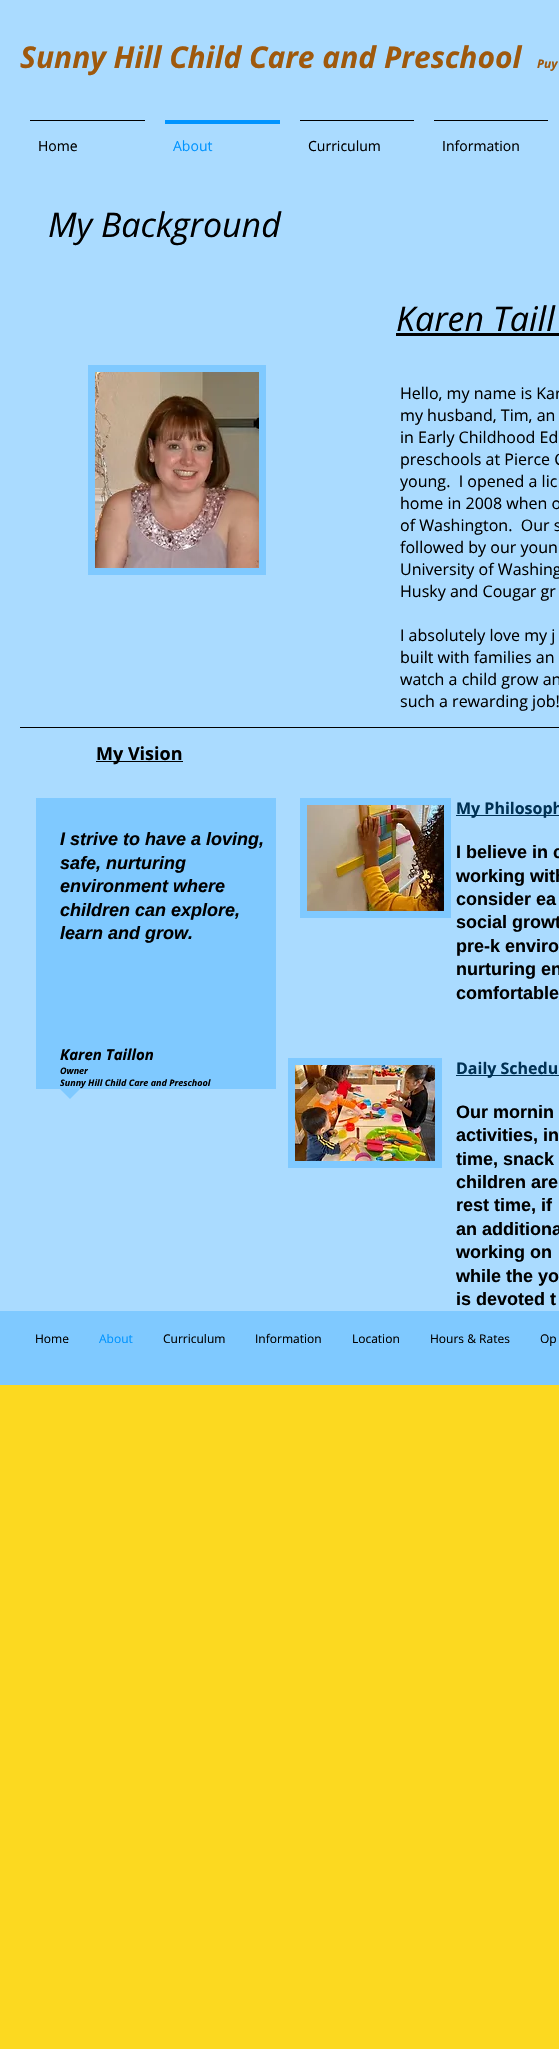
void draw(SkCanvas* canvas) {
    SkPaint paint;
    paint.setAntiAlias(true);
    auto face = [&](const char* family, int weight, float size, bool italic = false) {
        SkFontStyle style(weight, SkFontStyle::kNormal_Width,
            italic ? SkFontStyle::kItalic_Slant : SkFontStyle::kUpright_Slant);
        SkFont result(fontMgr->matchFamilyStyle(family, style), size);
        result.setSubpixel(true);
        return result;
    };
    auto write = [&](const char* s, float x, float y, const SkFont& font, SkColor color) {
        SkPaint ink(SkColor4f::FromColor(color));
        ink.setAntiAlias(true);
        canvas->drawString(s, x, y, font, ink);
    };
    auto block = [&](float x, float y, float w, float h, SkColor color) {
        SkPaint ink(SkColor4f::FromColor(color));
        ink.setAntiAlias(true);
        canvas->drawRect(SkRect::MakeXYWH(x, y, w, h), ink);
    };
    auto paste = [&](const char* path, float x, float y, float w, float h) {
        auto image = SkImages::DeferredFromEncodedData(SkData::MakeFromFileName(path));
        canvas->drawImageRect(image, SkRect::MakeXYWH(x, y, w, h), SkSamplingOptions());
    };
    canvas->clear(SkColorSetRGB(252, 217, 32));
    block(0, 0, 559, 1311, SkColorSetRGB(170, 219, 255));
    auto kFont1 = face("Open Sans", 700, 30, true);
    write("Sunny Hill Child Care and Preschool", 20, 68, kFont1, SkColorSetRGB(159, 89, 13));
    auto kFont2 = face("Open Sans", 700, 12, true);
    write("Puy", 537, 68, kFont2, SkColorSetRGB(159, 89, 13));
    block(30, 120, 115, 1, SK_ColorBLACK);
    auto kFont3 = face("Open Sans", 400, 14);
    write("Home", 38, 151, kFont3, SK_ColorBLACK);
    block(165, 120, 115, 4, SkColorSetRGB(0, 148, 255));
    write("About", 173, 151, kFont3, SkColorSetRGB(0, 148, 255));
    block(300, 120, 114, 1, SK_ColorBLACK);
    write("Curriculum", 308, 151, kFont3, SK_ColorBLACK);
    block(434, 120, 114, 1, SK_ColorBLACK);
    write("Information", 442, 151, kFont3, SK_ColorBLACK);
    auto kFont4 = face("Open Sans", 400, 34, true);
    write("My Background", 48, 237, kFont4, SK_ColorBLACK);
    write("Karen Taill", 396, 331, kFont4, SK_ColorBLACK);
    block(396, 333, 163, 3, SK_ColorBLACK);
    block(88, 365, 178, 210, SkColorSetRGB(127, 201, 255));
    paste("pic1.png", 95, 372, 164, 196);
    auto kFont5 = face("Open Sans", 400, 16);
    write("Hello, my name is Kar", 400, 399, kFont5, SK_ColorBLACK);
    write("my husband, Tim, an", 400, 421, kFont5, SK_ColorBLACK);
    write("in Early Childhood Ed", 400, 443, kFont5, SK_ColorBLACK);
    write("preschools at Pierce C", 400, 465, kFont5, SK_ColorBLACK);
    write("young.  I opened a lic", 400, 487, kFont5, SK_ColorBLACK);
    write("home in 2008 when o", 400, 509, kFont5, SK_ColorBLACK);
    write("of Washington.  Our s", 400, 531, kFont5, SK_ColorBLACK);
    write("followed by our youn", 400, 553, kFont5, SK_ColorBLACK);
    write("University of Washing", 400, 575, kFont5, SK_ColorBLACK);
    write("Husky and Cougar gr", 400, 597, kFont5, SK_ColorBLACK);
    write("I absolutely love my j", 400, 641, kFont5, SK_ColorBLACK);
    write("built with families an", 400, 663, kFont5, SK_ColorBLACK);
    write("watch a child grow an", 400, 685, kFont5, SK_ColorBLACK);
    write("such a rewarding job!", 400, 707, kFont5, SK_ColorBLACK);
    block(20, 727, 539, 1, SK_ColorBLACK);
    block(96, 761, 87, 1, SK_ColorBLACK);
    auto kFont6 = face("Open Sans", 700, 18);
    write("My Vision", 96, 760, kFont6, SK_ColorBLACK);
    block(36, 798, 240, 291, SkColorSetRGB(127, 201, 255));
    auto kFont7 = face("Liberation Sans", 700, 18, true);
    write("I strive to have a loving,", 60, 845, kFont7, SK_ColorBLACK);
    write("safe, nurturing", 60, 869, kFont7, SK_ColorBLACK);
    write("environment where", 60, 892, kFont7, SK_ColorBLACK);
    write("children can explore,", 60, 916, kFont7, SK_ColorBLACK);
    write("learn and grow.", 60, 939, kFont7, SK_ColorBLACK);
    auto kFont8 = face("Open Sans", 700, 15, true);
    write("Karen Taillon", 60, 1060, kFont8, SK_ColorBLACK);
    auto kFont9 = face("Open Sans", 700, 9, true);
    write("Owner", 60, 1074, kFont9, SK_ColorBLACK);
    write("Sunny Hill Child Care and Preschool", 60, 1086, kFont9, SK_ColorBLACK);
    paint.setColor(SkColorSetRGB(127, 201, 255));
    canvas->drawPath(SkPathBuilder().moveTo(60, 1089).lineTo(80, 1089).lineTo(70, 1099).close().detach(), paint);
    block(300, 798, 151, 120, SkColorSetRGB(127, 201, 255));
    paste("pic2.png", 307, 805, 137, 106);
    block(456, 815, 103, 1, SkColorSetRGB(0, 49, 84));
    auto kFont10 = face("Open Sans", 700, 16);
    write("My Philosoph", 456, 814, kFont10, SkColorSetRGB(0, 49, 84));
    auto kFont11 = face("Liberation Sans", 700, 18);
    write("I believe in c", 456, 858, kFont11, SK_ColorBLACK);
    write("working with", 456, 882, kFont11, SK_ColorBLACK);
    write("consider ea", 456, 905, kFont11, SK_ColorBLACK);
    write("social growt", 456, 928, kFont11, SK_ColorBLACK);
    write("pre-k enviro", 456, 952, kFont11, SK_ColorBLACK);
    write("nurturing en", 456, 975, kFont11, SK_ColorBLACK);
    write("comfortable", 456, 999, kFont11, SK_ColorBLACK);
    block(288, 1058, 154, 110, SkColorSetRGB(127, 201, 255));
    paste("pic3.png", 295, 1065, 140, 96);
    block(456, 1075, 103, 1, SkColorSetRGB(0, 49, 84));
    write("Daily Schedu", 456, 1074, kFont10, SkColorSetRGB(0, 49, 84));
    write("Our mornin", 456, 1118, kFont11, SK_ColorBLACK);
    write("activities, in", 456, 1141, kFont11, SK_ColorBLACK);
    write("time, snack", 456, 1165, kFont11, SK_ColorBLACK);
    write("children are", 456, 1188, kFont11, SK_ColorBLACK);
    write("rest time, if", 456, 1211, kFont11, SK_ColorBLACK);
    write("an additiona", 456, 1235, kFont11, SK_ColorBLACK);
    write("working on", 456, 1258, kFont11, SK_ColorBLACK);
    write("while the yo", 456, 1282, kFont11, SK_ColorBLACK);
    write("is devoted t", 456, 1305, kFont11, SK_ColorBLACK);
    block(0, 1311, 559, 74, SkColorSetRGB(127, 201, 255));
    auto kFont12 = face("Open Sans", 400, 12);
    write("Home", 35, 1343, kFont12, SK_ColorBLACK);
    write("About", 99, 1343, kFont12, SkColorSetRGB(0, 148, 255));
    write("Curriculum", 163, 1343, kFont12, SK_ColorBLACK);
    write("Information", 255, 1343, kFont12, SK_ColorBLACK);
    write("Location", 352, 1343, kFont12, SK_ColorBLACK);
    write("Hours & Rates", 430, 1343, kFont12, SK_ColorBLACK);
    write("Op", 540, 1343, kFont12, SK_ColorBLACK);
}
